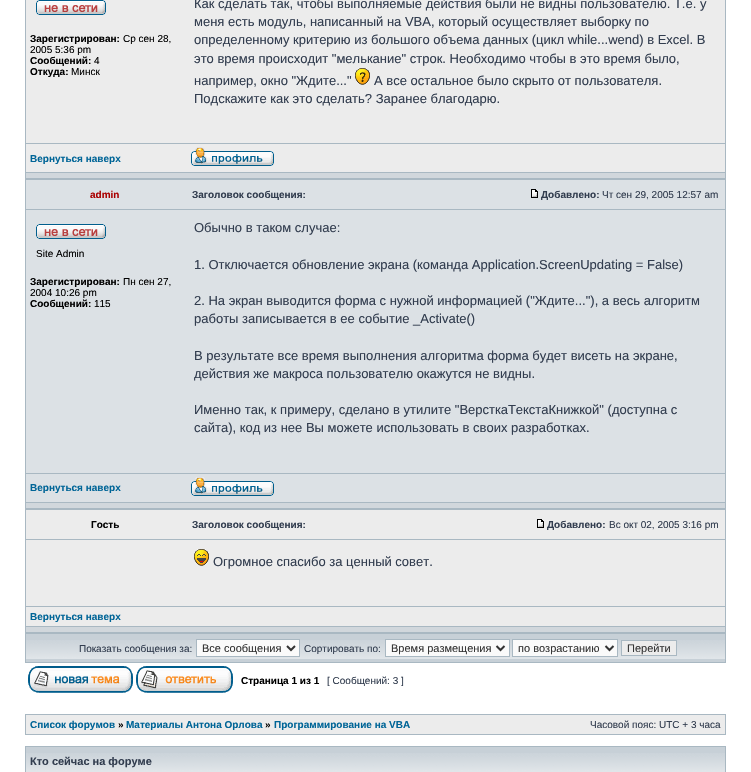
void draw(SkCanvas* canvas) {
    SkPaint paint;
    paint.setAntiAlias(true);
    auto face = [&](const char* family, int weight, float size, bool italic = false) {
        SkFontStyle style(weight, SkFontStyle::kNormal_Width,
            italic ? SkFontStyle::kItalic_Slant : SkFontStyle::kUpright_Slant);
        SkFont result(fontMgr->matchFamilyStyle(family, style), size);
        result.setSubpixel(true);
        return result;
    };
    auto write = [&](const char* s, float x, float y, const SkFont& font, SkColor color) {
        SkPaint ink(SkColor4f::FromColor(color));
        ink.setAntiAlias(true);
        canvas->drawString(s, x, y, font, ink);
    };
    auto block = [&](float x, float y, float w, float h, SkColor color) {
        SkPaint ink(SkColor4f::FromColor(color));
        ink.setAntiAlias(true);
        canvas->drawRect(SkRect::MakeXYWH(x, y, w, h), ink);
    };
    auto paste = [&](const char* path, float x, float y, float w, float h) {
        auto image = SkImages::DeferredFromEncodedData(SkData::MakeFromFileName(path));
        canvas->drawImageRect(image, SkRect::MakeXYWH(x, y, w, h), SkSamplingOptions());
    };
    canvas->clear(SK_ColorWHITE);
    block(25, 0, 701, 663, SkColorSetRGB(169, 184, 194));
    block(26, 0, 699, 143, SkColorSetRGB(236, 236, 236));
    paste("pic1.png", 36, 0, 70, 15);
    auto kFont1 = face("Liberation Sans", 700, 10);
    write("Зарегистрирован:", 30, 42, kFont1, SK_ColorBLACK);
    auto kFont2 = face("Liberation Sans", 400, 10);
    write("Ср сен 28,", 123, 42, kFont2, SK_ColorBLACK);
    write("2005 5:36 pm", 30, 53, kFont2, SK_ColorBLACK);
    write("Сообщений:", 30, 64, kFont1, SK_ColorBLACK);
    write("4", 94, 64, kFont2, SK_ColorBLACK);
    write("Откуда:", 30, 75, kFont1, SK_ColorBLACK);
    write("Минск", 71, 75, kFont2, SK_ColorBLACK);
    auto kFont3 = face("Liberation Sans", 400, 13);
    write("Как сделать так, чтобы выполняемые действия были не видны пользователю. Т.е. у", 194, 8, kFont3, SkColorSetRGB(50, 61, 79));
    write("меня есть модуль, написанный на VBA, который осуществляет выборку по", 194, 26, kFont3, SkColorSetRGB(50, 61, 79));
    write("определенному критерию из большого объема данных (цикл while...wend) в Excel. В", 194, 44, kFont3, SkColorSetRGB(50, 61, 79));
    write("это время происходит \"мелькание\" строк. Необходимо чтобы в это время было,", 194, 63, kFont3, SkColorSetRGB(50, 61, 79));
    write("например, окно \"Ждите...\"", 194, 85, kFont3, SkColorSetRGB(50, 61, 79));
    paste("pic2.png", 355, 68, 15, 17);
    write("А все остальное было скрыто от пользователя.", 374, 85, kFont3, SkColorSetRGB(50, 61, 79));
    write("Подскажите как это сделать? Заранее благодарю.", 194, 103, kFont3, SkColorSetRGB(50, 61, 79));
    block(26, 144, 699, 28, SkColorSetRGB(236, 236, 236));
    write("Вернуться наверх", 30, 162, kFont1, SkColorSetRGB(0, 101, 151));
    paste("pic3.png", 191, 147, 83, 19);
    block(26, 173, 699, 5, SkColorSetRGB(209, 215, 220));
    block(26, 180, 699, 29, SkColorSetRGB(220, 225, 229));
    write("admin", 90, 198, kFont1, SkColorSetRGB(170, 0, 0));
    write("Заголовок сообщения:", 192, 198, kFont1, SkColorSetRGB(50, 61, 79));
    paste("pic4.png", 531, 189, 7, 9);
    write("Добавлено:", 541, 198, kFont1, SkColorSetRGB(50, 61, 79));
    write("Чт сен 29, 2005 12:57 am", 602, 198, kFont2, SkColorSetRGB(50, 61, 79));
    block(26, 210, 699, 263, SkColorSetRGB(220, 225, 229));
    paste("pic5.png", 36, 224, 70, 15);
    write("Site Admin", 36, 257, kFont2, SK_ColorBLACK);
    write("Зарегистрирован:", 30, 285, kFont1, SK_ColorBLACK);
    write("Пн сен 27,", 123, 285, kFont2, SK_ColorBLACK);
    write("2004 10:26 pm", 30, 296, kFont2, SK_ColorBLACK);
    write("Сообщений:", 30, 307, kFont1, SK_ColorBLACK);
    write("115", 94, 307, kFont2, SK_ColorBLACK);
    write("Обычно в таком случае:", 194, 232, kFont3, SkColorSetRGB(50, 61, 79));
    write("1. Отключается обновление экрана (команда Application.ScreenUpdating = False)", 194, 269, kFont3, SkColorSetRGB(50, 61, 79));
    write("2. На экран выводится форма с нужной информацией (\"Ждите...\"), а весь алгоритм", 194, 305, kFont3, SkColorSetRGB(50, 61, 79));
    write("работы записывается в ее событие _Activate()", 194, 323, kFont3, SkColorSetRGB(50, 61, 79));
    write("В результате все время выполнения алгоритма форма будет висеть на экране,", 194, 360, kFont3, SkColorSetRGB(50, 61, 79));
    write("действия же макроса пользователю окажутся не видны.", 194, 378, kFont3, SkColorSetRGB(50, 61, 79));
    write("Именно так, к примеру, сделано в утилите \"ВерсткаТекстаКнижкой\" (доступна с", 194, 414, kFont3, SkColorSetRGB(50, 61, 79));
    write("сайта), код из нее Вы можете использовать в своих разработках.", 194, 432, kFont3, SkColorSetRGB(50, 61, 79));
    block(26, 474, 699, 28, SkColorSetRGB(220, 225, 229));
    write("Вернуться наверх", 30, 491, kFont1, SkColorSetRGB(0, 101, 151));
    paste("pic6.png", 191, 477, 83, 19);
    block(26, 503, 699, 5, SkColorSetRGB(209, 215, 220));
    block(26, 510, 699, 29, SkColorSetRGB(236, 236, 236));
    write("Гость", 91, 528, kFont1, SK_ColorBLACK);
    write("Заголовок сообщения:", 192, 528, kFont1, SkColorSetRGB(50, 61, 79));
    paste("pic7.png", 537, 519, 7, 9);
    write("Добавлено:", 547, 528, kFont1, SkColorSetRGB(50, 61, 79));
    write("Вс окт 02, 2005 3:16 pm", 609, 528, kFont2, SkColorSetRGB(50, 61, 79));
    block(26, 540, 699, 66, SkColorSetRGB(236, 236, 236));
    paste("pic8.png", 194, 549, 15, 17);
    write("Огромное спасибо за ценный совет.", 213, 566, kFont3, SkColorSetRGB(50, 61, 79));
    block(26, 607, 699, 19, SkColorSetRGB(236, 236, 236));
    write("Вернуться наверх", 30, 620, kFont1, SkColorSetRGB(0, 101, 151));
    block(26, 627, 699, 5, SkColorSetRGB(209, 215, 220));
    block(26, 634, 699, 28, SkColorSetRGB(199, 208, 215));
    paste("pic9.png", 26, 640, 699, 19);
    write("Показать сообщения за:", 79, 652, kFont2, SkColorSetRGB(50, 61, 79));
    paint.setColor(SkColorSetRGB(250, 250, 250));
    canvas->drawRect(SkRect::MakeXYWH(196.5f, 639.5f, 103, 17), paint);
    paint.setStyle(SkPaint::kStroke_Style);
    paint.setStrokeWidth(1);
    paint.setColor(SkColorSetRGB(169, 184, 194));
    canvas->drawRect(SkRect::MakeXYWH(196.5f, 639.5f, 103, 17), paint);
    paint.setStrokeWidth(2);
    paint.setColor(SkColorSetRGB(51, 51, 51));
    canvas->drawPath(SkPathBuilder().moveTo(287, 646).lineTo(291, 650).lineTo(295, 646).detach(), paint);
    auto kFont4 = face("Liberation Sans", 400, 11);
    write("Все сообщения", 202, 652, kFont4, SkColorSetRGB(51, 51, 51));
    write("Сортировать по:", 304, 652, kFont2, SkColorSetRGB(50, 61, 79));
    paint.setStyle(SkPaint::kFill_Style);
    paint.setColor(SkColorSetRGB(250, 250, 250));
    canvas->drawRect(SkRect::MakeXYWH(385.5f, 639.5f, 124, 17), paint);
    paint.setStyle(SkPaint::kStroke_Style);
    paint.setStrokeWidth(1);
    paint.setColor(SkColorSetRGB(169, 184, 194));
    canvas->drawRect(SkRect::MakeXYWH(385.5f, 639.5f, 124, 17), paint);
    paint.setStrokeWidth(2);
    paint.setColor(SkColorSetRGB(51, 51, 51));
    canvas->drawPath(SkPathBuilder().moveTo(496.5f, 646).lineTo(500.5f, 650).lineTo(504.5f, 646).detach(), paint);
    write("Время размещения", 391, 652, kFont4, SkColorSetRGB(51, 51, 51));
    paint.setStyle(SkPaint::kFill_Style);
    paint.setColor(SkColorSetRGB(250, 250, 250));
    canvas->drawRect(SkRect::MakeXYWH(512.5f, 639.5f, 105, 17), paint);
    paint.setStyle(SkPaint::kStroke_Style);
    paint.setStrokeWidth(1);
    paint.setColor(SkColorSetRGB(169, 184, 194));
    canvas->drawRect(SkRect::MakeXYWH(512.5f, 639.5f, 105, 17), paint);
    paint.setStrokeWidth(2);
    paint.setColor(SkColorSetRGB(51, 51, 51));
    canvas->drawPath(SkPathBuilder().moveTo(605.5f, 646).lineTo(609.5f, 650).lineTo(613.5f, 646).detach(), paint);
    write("по возрастанию", 518, 652, kFont4, SkColorSetRGB(51, 51, 51));
    paint.setStyle(SkPaint::kFill_Style);
    paint.setColor(SkColorSetRGB(236, 236, 236));
    canvas->drawRect(SkRect::MakeXYWH(621.5f, 640.5f, 55, 15), paint);
    paint.setStyle(SkPaint::kStroke_Style);
    paint.setStrokeWidth(1);
    paint.setColor(SkColorSetRGB(169, 184, 194));
    canvas->drawRect(SkRect::MakeXYWH(621.5f, 640.5f, 55, 15), paint);
    write("Перейти", 627, 652, kFont4, SkColorSetRGB(51, 51, 51));
    paste("pic10.png", 28, 666, 105, 27);
    paste("pic11.png", 136, 666, 97, 27);
    write("Страница 1 из 1", 241, 684, kFont1, SK_ColorBLACK);
    write("[ Сообщений: 3 ]", 327, 684, kFont2, SkColorSetRGB(50, 61, 79));
    block(25, 714, 701, 21, SkColorSetRGB(169, 184, 194));
    block(26, 715, 699, 19, SkColorSetRGB(236, 236, 236));
    write("Список форумов", 30, 728, kFont1, SkColorSetRGB(0, 101, 151));
    write("»", 118, 728, kFont1, SK_ColorBLACK);
    write("Материалы Антона Орлова", 126, 728, kFont1, SkColorSetRGB(0, 101, 151));
    write("»", 265, 728, kFont1, SK_ColorBLACK);
    write("Программирование на VBA", 274, 728, kFont1, SkColorSetRGB(0, 101, 151));
    write("Часовой пояс: UTC + 3 часа", 590, 728, kFont2, SkColorSetRGB(50, 61, 79));
    block(25, 746, 701, 26, SkColorSetRGB(169, 184, 194));
    block(26, 747, 699, 6, SkColorSetRGB(199, 208, 215));
    paste("pic9.png", 26, 753, 699, 19);
    auto kFont5 = face("Liberation Sans", 700, 11);
    write("Кто сейчас на форуме", 30, 765, kFont5, SkColorSetRGB(50, 61, 79));
}
